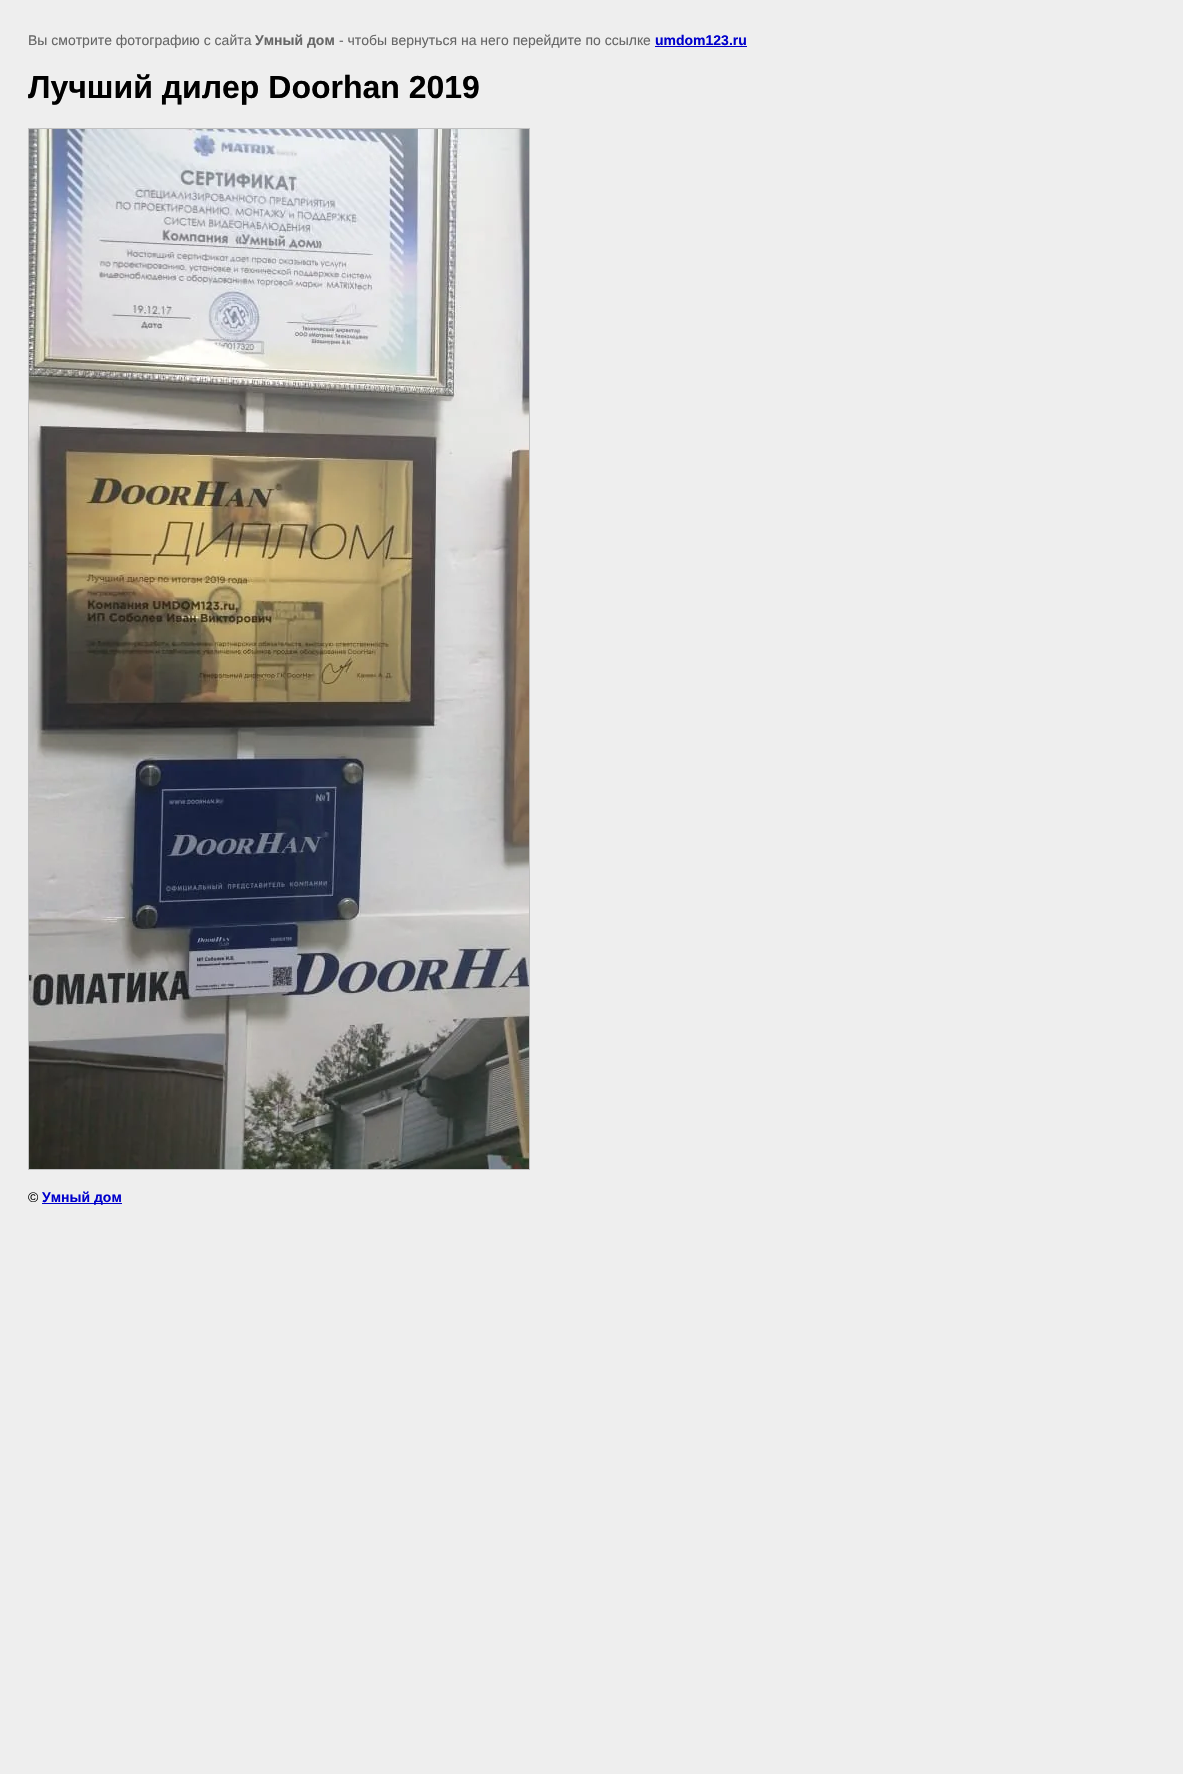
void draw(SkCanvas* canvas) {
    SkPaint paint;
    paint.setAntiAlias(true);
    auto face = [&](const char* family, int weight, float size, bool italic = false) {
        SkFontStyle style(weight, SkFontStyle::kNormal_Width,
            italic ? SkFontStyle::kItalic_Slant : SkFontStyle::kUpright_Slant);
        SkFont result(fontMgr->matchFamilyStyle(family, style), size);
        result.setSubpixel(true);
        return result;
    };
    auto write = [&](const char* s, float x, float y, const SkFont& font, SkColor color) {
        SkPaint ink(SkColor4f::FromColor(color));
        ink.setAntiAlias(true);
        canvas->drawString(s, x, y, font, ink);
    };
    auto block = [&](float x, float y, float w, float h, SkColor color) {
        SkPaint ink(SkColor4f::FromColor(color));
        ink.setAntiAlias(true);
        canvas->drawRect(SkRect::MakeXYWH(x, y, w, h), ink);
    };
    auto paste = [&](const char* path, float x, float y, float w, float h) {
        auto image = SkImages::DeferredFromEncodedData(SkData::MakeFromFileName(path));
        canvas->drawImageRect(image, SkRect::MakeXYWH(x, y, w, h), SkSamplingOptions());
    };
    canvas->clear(SkColorSetRGB(238, 238, 238));
    auto kFont1 = face("Liberation Sans", 400, 14);
    write("Вы смотрите фотографию с сайта", 28, 45, kFont1, SkColorSetRGB(102, 102, 102));
    auto kFont2 = face("Liberation Sans", 700, 14);
    write("Умный дом", 255, 45, kFont2, SkColorSetRGB(102, 102, 102));
    write("- чтобы вернуться на него перейдите по ссылке", 339, 45, kFont1, SkColorSetRGB(102, 102, 102));
    write("umdom123.ru", 655, 45, kFont2, SkColorSetRGB(0, 0, 204));
    block(655, 46, 92, 1, SkColorSetRGB(0, 0, 204));
    auto kFont3 = face("Liberation Sans", 700, 32);
    write("Лучший дилер Doorhan 2019", 28, 98, kFont3, SK_ColorBLACK);
    paint.setStyle(SkPaint::kStroke_Style);
    paint.setStrokeWidth(1);
    paint.setColor(SkColorSetRGB(192, 192, 192));
    canvas->drawRect(SkRect::MakeXYWH(28.5f, 128.5f, 501, 1041), paint);
    paste("pic1.png", 29, 129, 500, 1040);
    write("©", 28, 1202, kFont1, SK_ColorBLACK);
    block(42, 1203, 80, 1, SkColorSetRGB(0, 0, 204));
    write("Умный дом", 42, 1202, kFont2, SkColorSetRGB(0, 0, 204));
}
